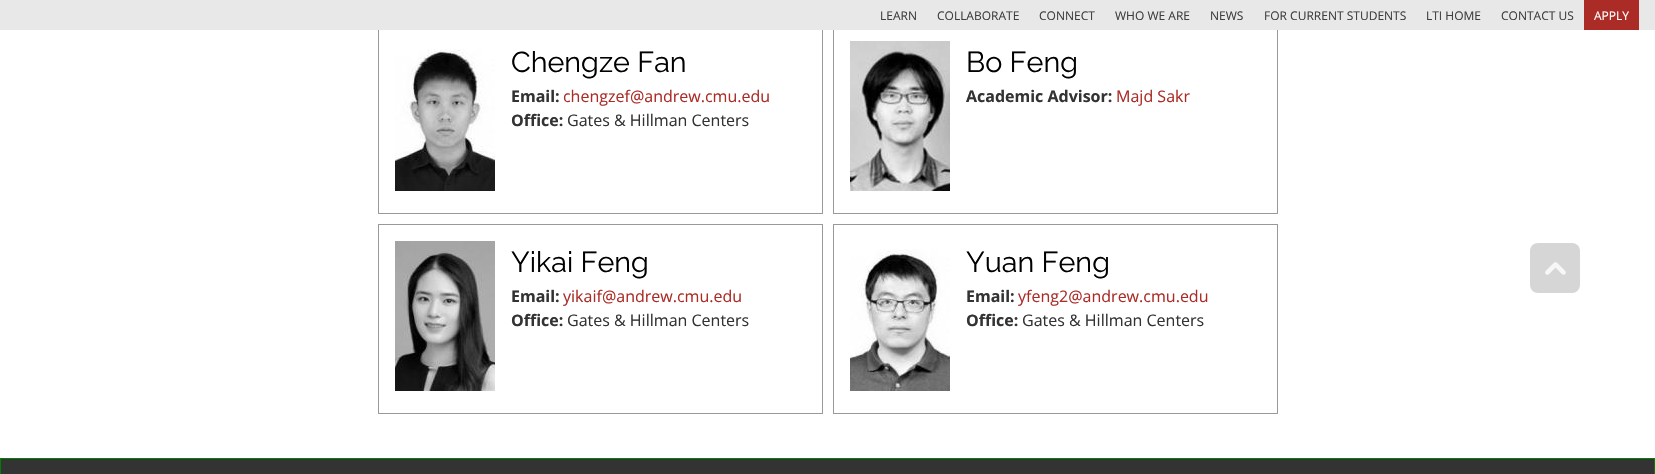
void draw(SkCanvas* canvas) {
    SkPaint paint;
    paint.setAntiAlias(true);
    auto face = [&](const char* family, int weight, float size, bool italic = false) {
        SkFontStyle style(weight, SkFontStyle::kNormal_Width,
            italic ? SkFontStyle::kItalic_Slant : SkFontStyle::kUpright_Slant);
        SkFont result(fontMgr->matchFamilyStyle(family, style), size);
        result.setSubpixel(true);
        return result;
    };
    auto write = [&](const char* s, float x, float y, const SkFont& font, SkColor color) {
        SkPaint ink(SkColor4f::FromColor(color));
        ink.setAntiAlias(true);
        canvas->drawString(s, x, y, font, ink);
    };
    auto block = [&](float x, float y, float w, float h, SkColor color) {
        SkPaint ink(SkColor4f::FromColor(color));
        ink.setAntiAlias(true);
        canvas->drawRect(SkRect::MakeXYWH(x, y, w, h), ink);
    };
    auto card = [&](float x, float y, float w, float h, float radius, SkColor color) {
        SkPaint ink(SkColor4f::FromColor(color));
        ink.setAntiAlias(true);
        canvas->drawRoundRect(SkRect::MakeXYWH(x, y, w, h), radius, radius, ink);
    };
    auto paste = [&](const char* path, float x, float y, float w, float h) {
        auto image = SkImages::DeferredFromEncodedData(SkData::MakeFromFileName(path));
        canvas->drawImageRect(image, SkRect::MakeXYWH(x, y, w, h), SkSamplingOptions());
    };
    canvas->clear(SK_ColorWHITE);
    paint.setStyle(SkPaint::kStroke_Style);
    paint.setStrokeWidth(1);
    paint.setColor(SkColorSetRGB(153, 153, 153));
    canvas->drawRect(SkRect::MakeXYWH(378.5f, 24.5f, 444, 189), paint);
    canvas->drawRect(SkRect::MakeXYWH(833.5f, 24.5f, 444, 189), paint);
    block(0, 0, 1655, 30, SkColorSetRGB(232, 232, 232));
    auto kFont1 = face("Open Sans", 400, 12);
    write("LEARN", 880, 20, kFont1, SkColorSetRGB(63, 63, 63));
    write("COLLABORATE", 937, 20, kFont1, SkColorSetRGB(63, 63, 63));
    write("CONNECT", 1039, 20, kFont1, SkColorSetRGB(63, 63, 63));
    write("WHO WE ARE", 1115, 20, kFont1, SkColorSetRGB(63, 63, 63));
    write("NEWS", 1210, 20, kFont1, SkColorSetRGB(63, 63, 63));
    write("FOR CURRENT STUDENTS", 1264, 20, kFont1, SkColorSetRGB(63, 63, 63));
    write("LTI HOME", 1426, 20, kFont1, SkColorSetRGB(63, 63, 63));
    write("CONTACT US", 1501, 20, kFont1, SkColorSetRGB(63, 63, 63));
    block(1584, 0, 55, 30, SkColorSetRGB(171, 44, 39));
    write("APPLY", 1594, 20, kFont1, SK_ColorWHITE);
    paste("pic1.png", 395, 49, 100, 142);
    auto kFont2 = face("Raleway", 100, 28.75f);
    write("Chengze Fan", 511, 72, kFont2, SK_ColorBLACK);
    auto kFont3 = face("Open Sans", 700, 16);
    write("Email:", 511, 102, kFont3, SkColorSetRGB(51, 51, 51));
    auto kFont4 = face("Open Sans", 400, 16);
    write("chengzef@andrew.cmu.edu", 563, 102, kFont4, SkColorSetRGB(171, 44, 39));
    write("Office:", 511, 126, kFont3, SkColorSetRGB(51, 51, 51));
    write("Gates & Hillman Centers", 567, 126, kFont4, SkColorSetRGB(51, 51, 51));
    paste("pic2.png", 850, 41, 100, 150);
    write("Bo Feng", 966, 72, kFont2, SK_ColorBLACK);
    write("Academic Advisor:", 966, 102, kFont3, SkColorSetRGB(51, 51, 51));
    write("Majd Sakr", 1116, 102, kFont4, SkColorSetRGB(171, 44, 39));
    canvas->drawRect(SkRect::MakeXYWH(378.5f, 224.5f, 444, 189), paint);
    paste("pic3.png", 395, 241, 100, 150);
    write("Yikai Feng", 511, 272, kFont2, SK_ColorBLACK);
    write("Email:", 511, 302, kFont3, SkColorSetRGB(51, 51, 51));
    write("yikaif@andrew.cmu.edu", 563, 302, kFont4, SkColorSetRGB(171, 44, 39));
    write("Office:", 511, 326, kFont3, SkColorSetRGB(51, 51, 51));
    write("Gates & Hillman Centers", 567, 326, kFont4, SkColorSetRGB(51, 51, 51));
    canvas->drawRect(SkRect::MakeXYWH(833.5f, 224.5f, 444, 189), paint);
    paste("pic4.png", 850, 249, 100, 142);
    write("Yuan Feng", 966, 272, kFont2, SK_ColorBLACK);
    write("Email:", 966, 302, kFont3, SkColorSetRGB(51, 51, 51));
    write("yfeng2@andrew.cmu.edu", 1018, 302, kFont4, SkColorSetRGB(171, 44, 39));
    write("Office:", 966, 326, kFont3, SkColorSetRGB(51, 51, 51));
    write("Gates & Hillman Centers", 1022, 326, kFont4, SkColorSetRGB(51, 51, 51));
    paint.setStyle(SkPaint::kFill_Style);
    paint.setColor(SkColorSetRGB(51, 51, 51));
    canvas->drawRect(SkRect::MakeXYWH(0.5f, 458.5f, 1654, 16), paint);
    paint.setStyle(SkPaint::kStroke_Style);
    paint.setColor(SkColorSetRGB(0, 128, 0));
    canvas->drawRect(SkRect::MakeXYWH(0.5f, 458.5f, 1654, 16), paint);
    card(1530, 243, 50, 50, 8, SkColorSetRGB(214, 214, 214));
    paste("pic5.png", 1545, 262, 21, 13);
}
